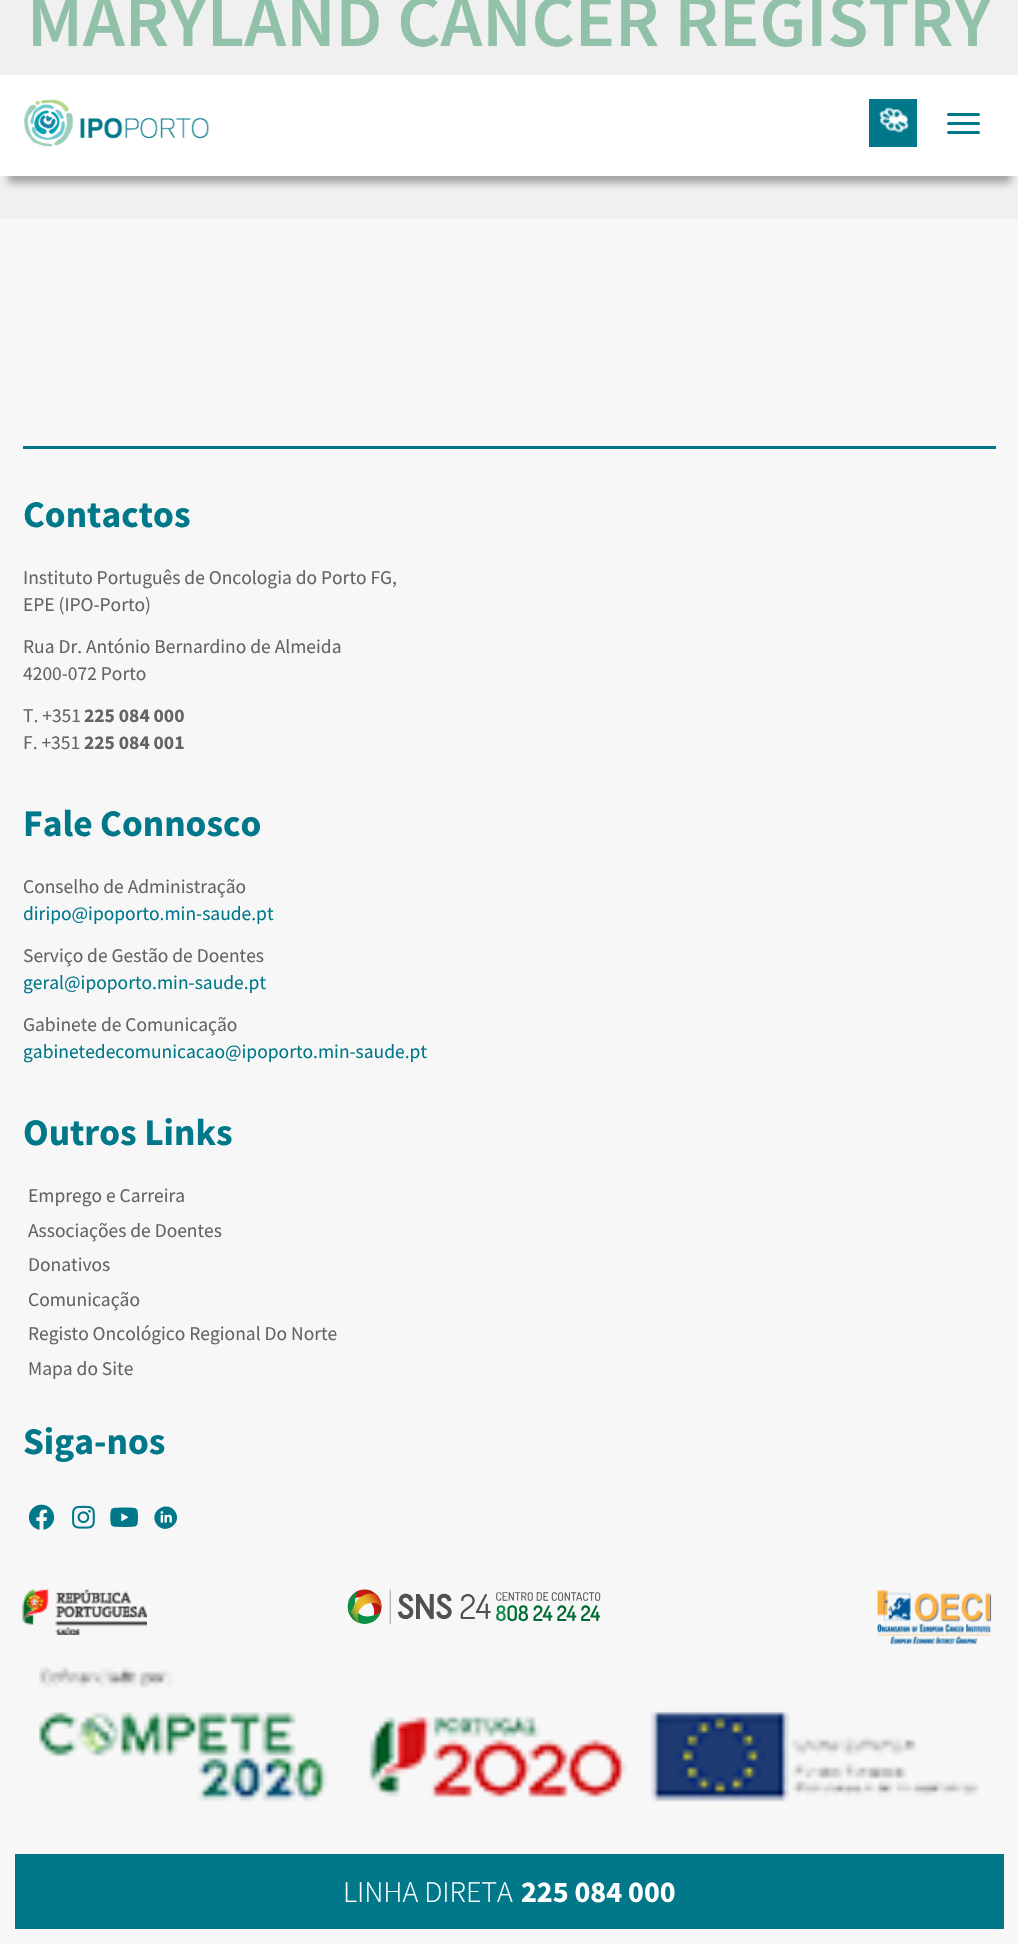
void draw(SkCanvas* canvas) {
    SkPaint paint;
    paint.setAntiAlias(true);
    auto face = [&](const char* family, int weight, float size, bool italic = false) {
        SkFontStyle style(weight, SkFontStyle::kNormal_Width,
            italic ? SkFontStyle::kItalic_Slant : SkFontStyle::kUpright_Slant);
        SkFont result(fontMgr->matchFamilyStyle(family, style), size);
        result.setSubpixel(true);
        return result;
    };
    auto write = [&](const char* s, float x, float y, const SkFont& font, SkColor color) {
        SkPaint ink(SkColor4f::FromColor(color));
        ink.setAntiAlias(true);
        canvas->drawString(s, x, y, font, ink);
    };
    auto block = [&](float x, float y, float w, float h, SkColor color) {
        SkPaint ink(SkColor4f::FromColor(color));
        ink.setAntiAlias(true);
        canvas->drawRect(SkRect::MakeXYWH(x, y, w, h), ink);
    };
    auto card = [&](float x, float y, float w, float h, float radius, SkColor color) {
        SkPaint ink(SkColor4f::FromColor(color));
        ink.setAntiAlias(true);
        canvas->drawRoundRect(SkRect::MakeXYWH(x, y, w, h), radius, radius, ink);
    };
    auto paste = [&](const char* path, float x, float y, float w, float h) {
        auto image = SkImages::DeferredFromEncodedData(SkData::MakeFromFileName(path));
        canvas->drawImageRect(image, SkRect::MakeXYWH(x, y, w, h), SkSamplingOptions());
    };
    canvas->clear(SkColorSetRGB(247, 247, 247));
    block(0, 0, 1018, 219, SkColorSetRGB(240, 240, 240));
    auto kFont1 = face("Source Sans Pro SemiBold", 600, 75);
    write("MARYLAND CANCER REGISTRY", 27, 46, kFont1, SkColorSetRGB(145, 193, 168));
    paint.setColor(SkColorSetARGB(82, 0, 0, 0));
    paint.setMaskFilter(SkMaskFilter::MakeBlur(kNormal_SkBlurStyle, 4));
    canvas->drawRect(SkRect::MakeXYWH(8, 98, 1003, 85), paint);
    paint.setMaskFilter(nullptr);
    block(0, 75, 1018, 101, SK_ColorWHITE);
    paste("pic1.png", 24, 99, 185, 48);
    block(869, 99, 48, 48, SkColorSetRGB(0, 120, 138));
    paste("pic2.png", 878, 107, 31, 26);
    card(947, 113, 33, 3, 1.5f, SkColorSetRGB(0, 120, 138));
    card(947, 122, 33, 3, 1.5f, SkColorSetRGB(0, 120, 138));
    card(947, 131, 33, 3, 1.5f, SkColorSetRGB(0, 120, 138));
    block(23, 446, 973, 3, SkColorSetRGB(0, 120, 138));
    auto kFont2 = face("Source Sans Pro", 700, 37.5f);
    write("Contactos", 23, 527, kFont2, SkColorSetRGB(0, 120, 138));
    auto kFont3 = face("Source Sans Pro", 400, 19.5f);
    write("Instituto Português de Oncologia do Porto FG,", 23, 584, kFont3, SkColorSetRGB(100, 100, 100));
    write("EPE (IPO-Porto)", 23, 611, kFont3, SkColorSetRGB(100, 100, 100));
    write("Rua Dr. António Bernardino de Almeida", 23, 653, kFont3, SkColorSetRGB(100, 100, 100));
    write("4200-072 Porto", 23, 680, kFont3, SkColorSetRGB(100, 100, 100));
    write("T. +351", 23, 722, kFont3, SkColorSetRGB(100, 100, 100));
    auto kFont4 = face("Source Sans Pro", 700, 19.5f);
    write("225 084 000", 84, 722, kFont4, SkColorSetRGB(100, 100, 100));
    write("F. +351", 23, 749, kFont3, SkColorSetRGB(100, 100, 100));
    write("225 084 001", 84, 749, kFont4, SkColorSetRGB(100, 100, 100));
    write("Fale Connosco", 23, 836, kFont2, SkColorSetRGB(0, 120, 138));
    write("Conselho de Administração", 23, 893, kFont3, SkColorSetRGB(100, 100, 100));
    write("diripo@ipoporto.min-saude.pt", 23, 920, kFont3, SkColorSetRGB(0, 120, 138));
    write("Serviço de Gestão de Doentes", 23, 962, kFont3, SkColorSetRGB(100, 100, 100));
    write("geral@ipoporto.min-saude.pt", 23, 989, kFont3, SkColorSetRGB(0, 120, 138));
    write("Gabinete de Comunicação", 23, 1031, kFont3, SkColorSetRGB(100, 100, 100));
    write("gabinetedecomunicacao@ipoporto.min-saude.pt", 23, 1058, kFont3, SkColorSetRGB(0, 120, 138));
    write("Outros Links", 23, 1145, kFont2, SkColorSetRGB(0, 120, 138));
    write("Emprego e Carreira", 28, 1202, kFont3, SkColorSetRGB(100, 100, 100));
    write("Associações de Doentes", 28, 1237, kFont3, SkColorSetRGB(100, 100, 100));
    write("Donativos", 28, 1271, kFont3, SkColorSetRGB(100, 100, 100));
    write("Comunicação", 28, 1306, kFont3, SkColorSetRGB(100, 100, 100));
    write("Registo Oncológico Regional Do Norte", 28, 1340, kFont3, SkColorSetRGB(100, 100, 100));
    write("Mapa do Site", 28, 1375, kFont3, SkColorSetRGB(100, 100, 100));
    write("Siga-nos", 23, 1454, kFont2, SkColorSetRGB(0, 120, 138));
    paste("pic3.png", 28, 1504, 27, 26);
    paste("pic4.png", 72, 1505, 23, 24);
    paste("pic5.png", 110, 1507, 28, 20);
    paint.setColor(SkColorSetRGB(0, 120, 138));
    canvas->drawPath(SkPathBuilder().moveTo(175.5f, 1512).cubicTo(182.5f, 1524.5f, 163.5f, 1536, 156, 1523.5f).cubicTo(148.5f, 1510.5f, 168, 1499.5f, 175.5f, 1512).close().detach(), paint);
    paste("pic6.png", 160, 1511, 12, 12);
    paste("pic7.png", 22, 1588, 125, 47);
    paste("pic8.png", 347, 1589, 254, 35);
    paste("pic9.png", 877, 1590, 115, 55);
    paste("pic10.png", 39, 1666, 941, 136);
    block(15, 1854, 989, 75, SkColorSetRGB(0, 120, 138));
    auto kFont5 = face("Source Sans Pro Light", 300, 30);
    write("LINHA DIRETA", 343, 1902, kFont5, SK_ColorWHITE);
    auto kFont6 = face("Source Sans Pro", 700, 30);
    write("225 084 000", 521, 1902, kFont6, SK_ColorWHITE);
}
